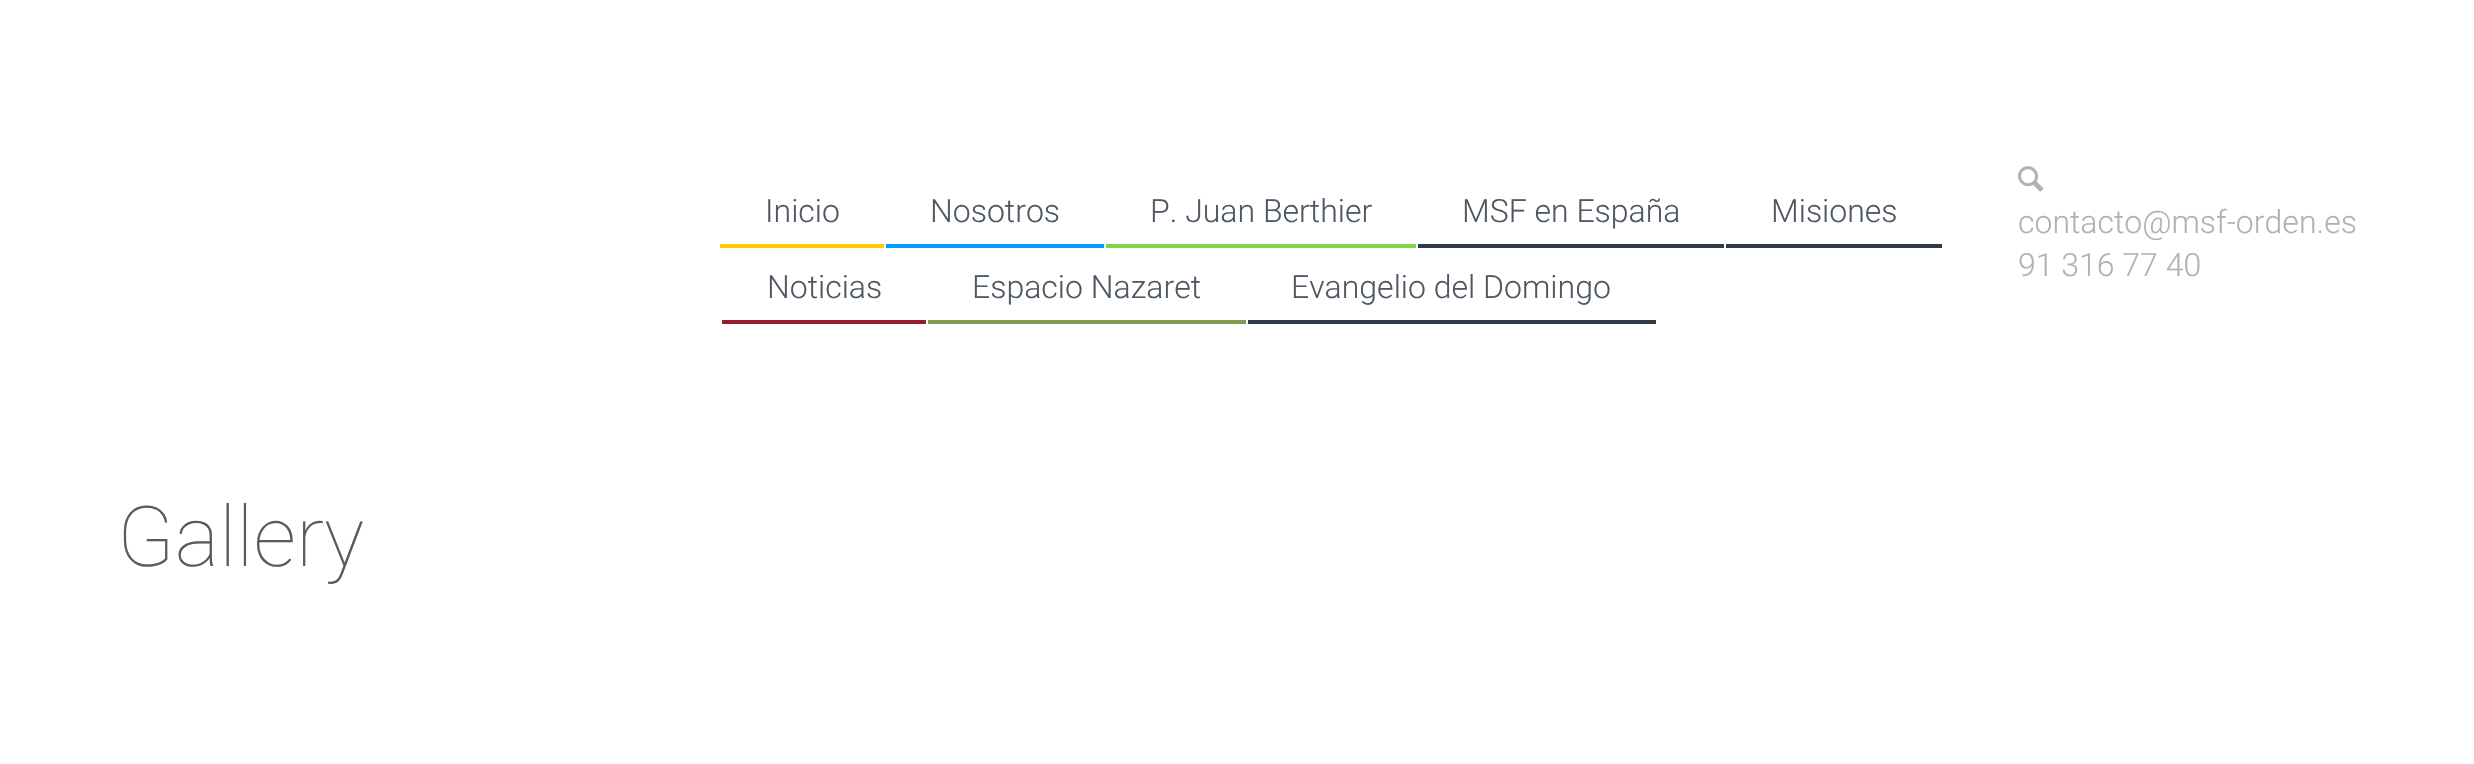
void draw(SkCanvas* canvas) {
    SkPaint paint;
    paint.setAntiAlias(true);
    auto face = [&](const char* family, int weight, float size, bool italic = false) {
        SkFontStyle style(weight, SkFontStyle::kNormal_Width,
            italic ? SkFontStyle::kItalic_Slant : SkFontStyle::kUpright_Slant);
        SkFont result(fontMgr->matchFamilyStyle(family, style), size);
        result.setSubpixel(true);
        return result;
    };
    auto write = [&](const char* s, float x, float y, const SkFont& font, SkColor color) {
        SkPaint ink(SkColor4f::FromColor(color));
        ink.setAntiAlias(true);
        canvas->drawString(s, x, y, font, ink);
    };
    auto block = [&](float x, float y, float w, float h, SkColor color) {
        SkPaint ink(SkColor4f::FromColor(color));
        ink.setAntiAlias(true);
        canvas->drawRect(SkRect::MakeXYWH(x, y, w, h), ink);
    };
    auto paste = [&](const char* path, float x, float y, float w, float h) {
        auto image = SkImages::DeferredFromEncodedData(SkData::MakeFromFileName(path));
        canvas->drawImageRect(image, SkRect::MakeXYWH(x, y, w, h), SkSamplingOptions());
    };
    canvas->clear(SK_ColorWHITE);
    auto kFont1 = face("Roboto", 300, 32);
    write("Inicio", 765, 222, kFont1, SkColorSetRGB(78, 87, 98));
    block(720, 244, 164, 4, SkColorSetRGB(255, 204, 0));
    write("Nosotros", 930, 222, kFont1, SkColorSetRGB(78, 87, 98));
    block(886, 244, 218, 4, SkColorSetRGB(0, 156, 255));
    write("P. Juan Berthier", 1150, 222, kFont1, SkColorSetRGB(78, 87, 98));
    block(1106, 244, 310, 4, SkColorSetRGB(128, 212, 69));
    write("MSF en España", 1462, 222, kFont1, SkColorSetRGB(78, 87, 98));
    block(1418, 244, 306, 4, SkColorSetRGB(47, 58, 71));
    write("Misiones", 1771, 222, kFont1, SkColorSetRGB(78, 87, 98));
    block(1726, 244, 216, 4, SkColorSetRGB(47, 58, 71));
    write("Noticias", 767, 298, kFont1, SkColorSetRGB(78, 87, 98));
    block(722, 320, 204, 4, SkColorSetRGB(146, 31, 48));
    write("Espacio Nazaret", 972, 298, kFont1, SkColorSetRGB(78, 87, 98));
    block(928, 320, 318, 4, SkColorSetRGB(131, 155, 81));
    write("Evangelio del Domingo", 1291, 298, kFont1, SkColorSetRGB(78, 87, 98));
    block(1248, 320, 408, 4, SkColorSetRGB(47, 58, 71));
    paste("pic1.png", 2018, 166, 26, 26);
    write("contacto@msf-orden.es", 2018, 233, kFont1, SkColorSetRGB(177, 177, 177));
    write("91 316 77 40", 2018, 276, kFont1, SkColorSetRGB(177, 177, 177));
    auto kFont2 = face("Roboto", 100, 84);
    write("Gallery", 117, 566, kFont2, SkColorSetRGB(91, 91, 91));
}
